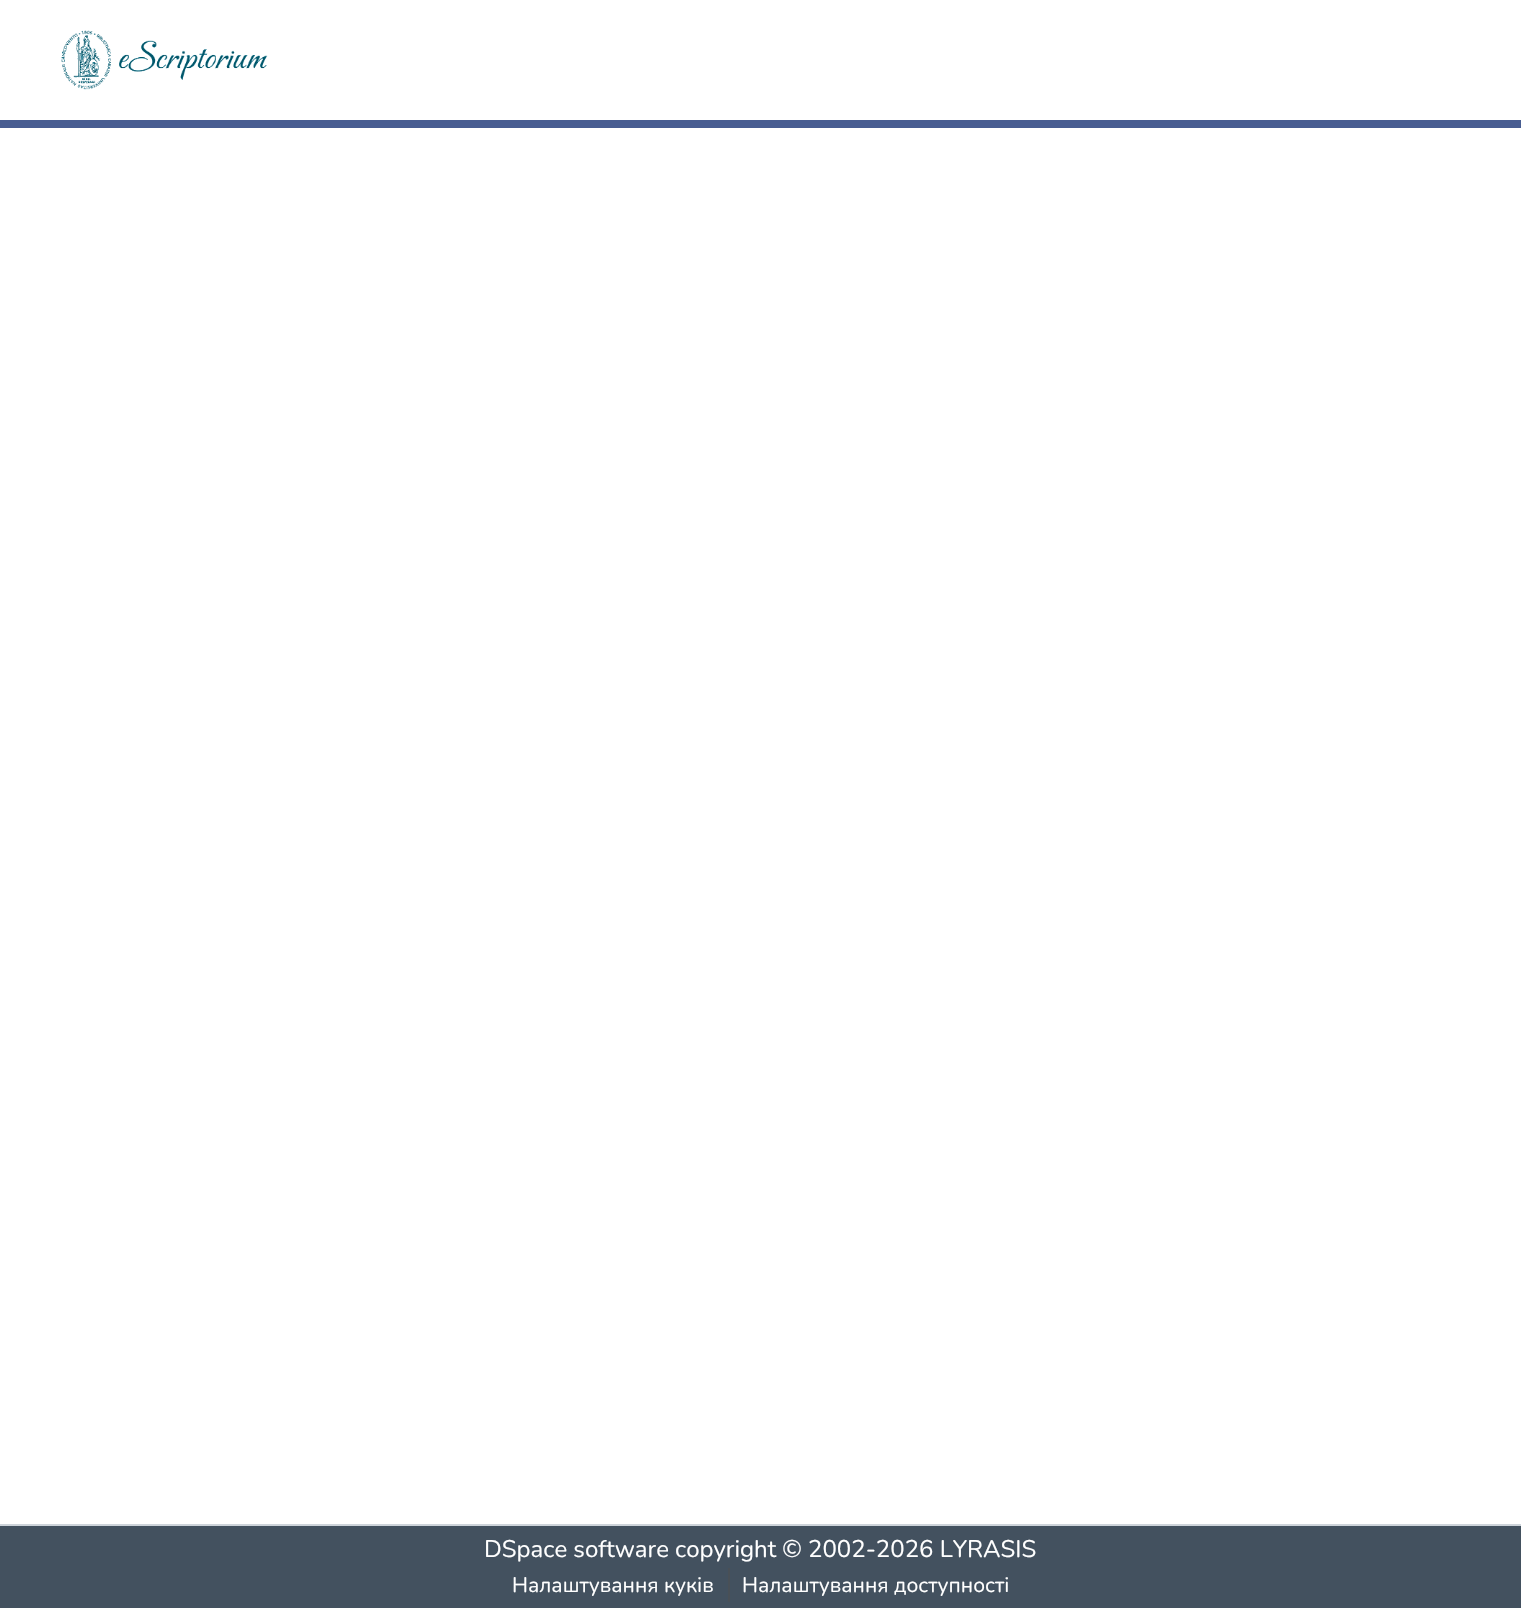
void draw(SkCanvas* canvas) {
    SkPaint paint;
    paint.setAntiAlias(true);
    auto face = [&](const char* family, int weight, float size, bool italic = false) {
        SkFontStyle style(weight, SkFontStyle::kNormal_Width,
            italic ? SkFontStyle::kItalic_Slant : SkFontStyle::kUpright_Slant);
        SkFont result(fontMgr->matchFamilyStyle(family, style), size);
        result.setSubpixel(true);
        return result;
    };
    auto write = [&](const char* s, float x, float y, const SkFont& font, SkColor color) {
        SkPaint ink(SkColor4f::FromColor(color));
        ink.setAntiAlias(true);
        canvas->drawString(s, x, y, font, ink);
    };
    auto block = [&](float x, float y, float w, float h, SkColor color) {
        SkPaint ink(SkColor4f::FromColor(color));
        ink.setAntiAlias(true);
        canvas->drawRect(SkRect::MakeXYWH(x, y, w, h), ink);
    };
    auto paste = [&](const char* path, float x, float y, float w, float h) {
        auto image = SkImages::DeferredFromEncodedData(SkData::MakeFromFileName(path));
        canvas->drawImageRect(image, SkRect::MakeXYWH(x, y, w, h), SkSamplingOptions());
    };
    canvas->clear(SK_ColorWHITE);
    block(0, 120, 1521, 8, SkColorSetRGB(72, 93, 145));
    paste("pic1.png", 61, 30, 207, 60);
    block(0, 1526, 1521, 82, SkColorSetRGB(67, 81, 95));
    block(0, 1524, 1521, 2, SkColorSetRGB(206, 212, 218));
    auto kFont1 = face("Nunito", 400, 24);
    write("DSpace software copyright © 2002-2026 LYRASIS", 484, 1557, kFont1, SK_ColorWHITE);
    auto kFont2 = face("Nunito", 400, 21);
    write("Налаштування куків", 512, 1592, kFont2, SK_ColorWHITE);
    block(728, 1568, 2, 34, SkColorSetRGB(73, 80, 87));
    write("Налаштування доступності", 742, 1592, kFont2, SK_ColorWHITE);
}
